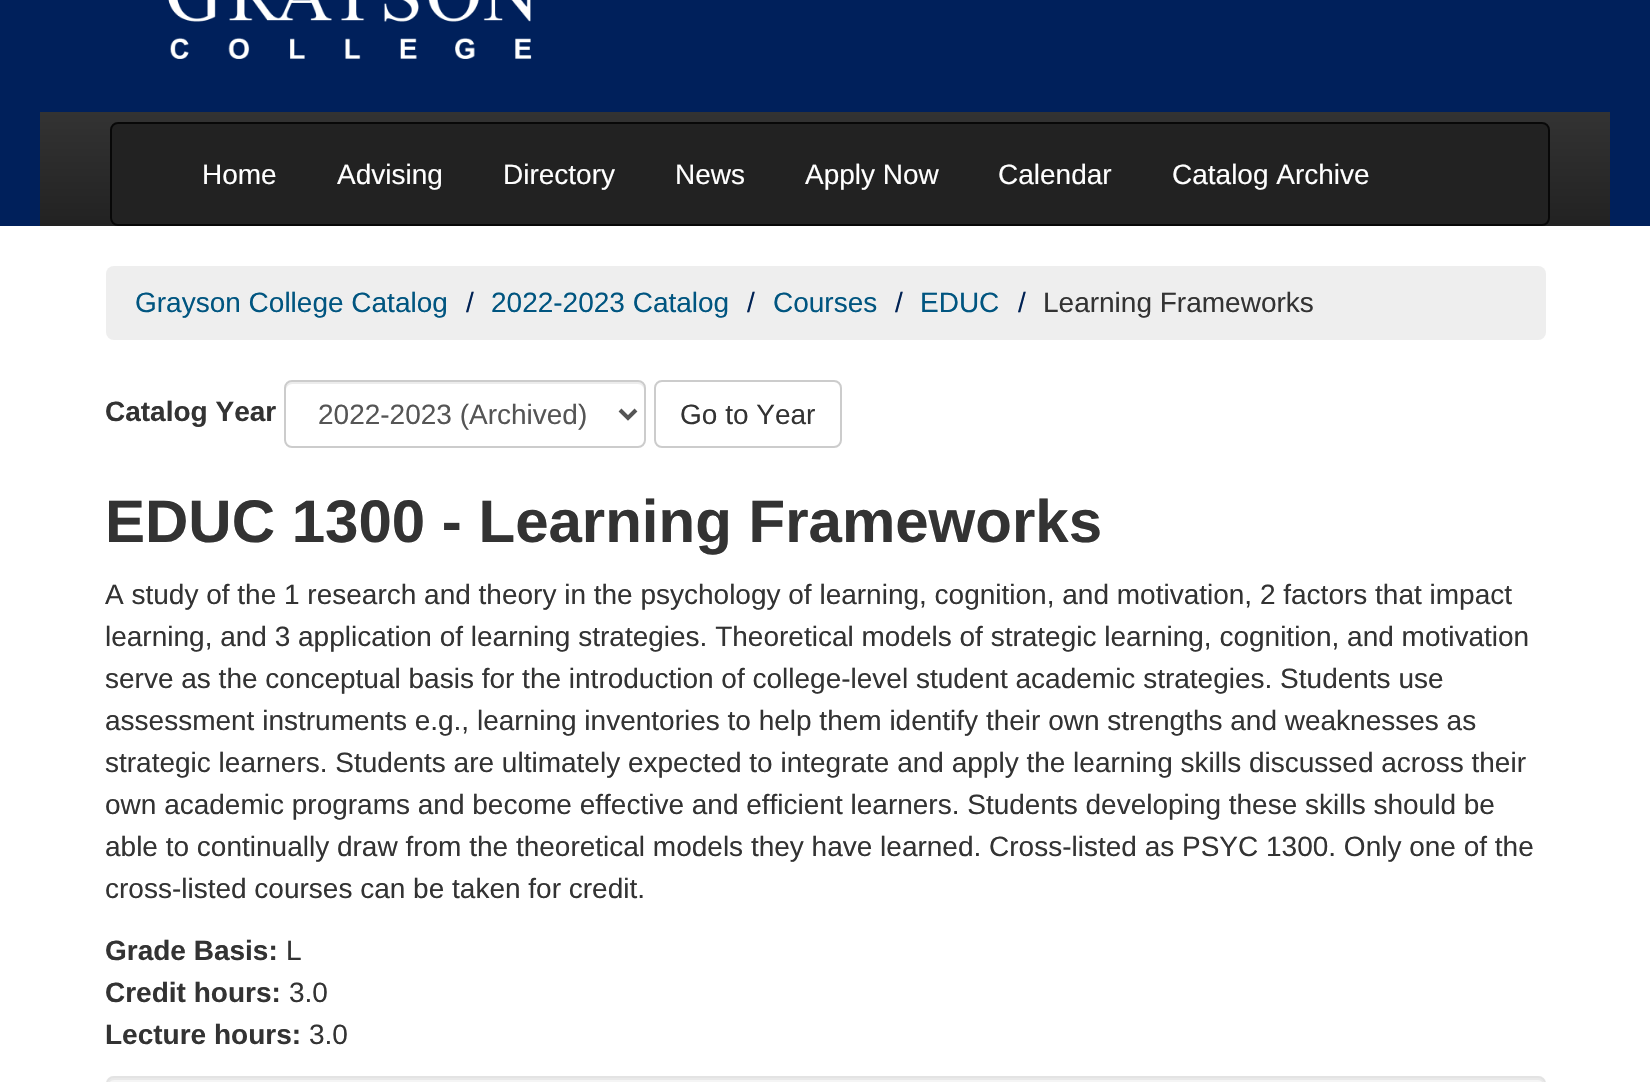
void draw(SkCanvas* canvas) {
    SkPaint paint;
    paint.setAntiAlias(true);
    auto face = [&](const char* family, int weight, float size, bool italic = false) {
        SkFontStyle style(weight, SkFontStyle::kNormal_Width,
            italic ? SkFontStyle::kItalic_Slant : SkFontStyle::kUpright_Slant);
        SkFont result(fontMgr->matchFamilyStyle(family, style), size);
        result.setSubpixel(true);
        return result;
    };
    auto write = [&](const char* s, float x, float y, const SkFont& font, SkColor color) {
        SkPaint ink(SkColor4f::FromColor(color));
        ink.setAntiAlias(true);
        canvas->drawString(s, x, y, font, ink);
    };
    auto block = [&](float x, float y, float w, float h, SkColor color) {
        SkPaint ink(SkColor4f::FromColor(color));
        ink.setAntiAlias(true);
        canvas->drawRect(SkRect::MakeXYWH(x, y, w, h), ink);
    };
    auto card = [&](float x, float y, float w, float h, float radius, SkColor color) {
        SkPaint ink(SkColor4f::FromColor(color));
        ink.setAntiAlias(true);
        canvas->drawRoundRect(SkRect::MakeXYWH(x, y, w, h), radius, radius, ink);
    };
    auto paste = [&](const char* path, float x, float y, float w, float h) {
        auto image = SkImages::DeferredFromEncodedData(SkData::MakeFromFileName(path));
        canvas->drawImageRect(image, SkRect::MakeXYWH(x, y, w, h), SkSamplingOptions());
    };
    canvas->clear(SK_ColorWHITE);
    block(0, 0, 1650, 226, SkColorSetRGB(0, 32, 91));
    paste("pic1.png", 168, 0, 364, 59);
    {
        const SkColor colors[] = {SkColorSetRGB(51, 51, 51), SkColorSetRGB(34, 34, 34)};
        const float stops[] = {0, 1};
        const SkPoint ends[] = {{825, 112}, {825, 226}};
        paint.setShader(SkGradientShader::MakeLinear(ends, colors, stops, 2, SkTileMode::kClamp));
        paint.setAlpha(255);
    }
    canvas->drawRect(SkRect::MakeXYWH(40, 112, 1570, 114), paint);
    paint.setShader(nullptr);
    paint.setColor(SkColorSetRGB(34, 34, 34));
    canvas->drawRoundRect(SkRect::MakeXYWH(111, 123, 1438, 102), 7, 7, paint);
    paint.setStyle(SkPaint::kStroke_Style);
    paint.setStrokeWidth(2);
    paint.setColor(SkColorSetRGB(8, 8, 8));
    canvas->drawRoundRect(SkRect::MakeXYWH(111, 123, 1438, 102), 7, 7, paint);
    auto kFont1 = face("Liberation Sans", 400, 28);
    write("Home", 202, 184, kFont1, SK_ColorWHITE);
    write("Advising", 337, 184, kFont1, SK_ColorWHITE);
    write("Directory", 503, 184, kFont1, SK_ColorWHITE);
    write("News", 675, 184, kFont1, SK_ColorWHITE);
    write("Apply Now", 805, 184, kFont1, SK_ColorWHITE);
    write("Calendar", 998, 184, kFont1, SK_ColorWHITE);
    write("Catalog Archive", 1172, 184, kFont1, SK_ColorWHITE);
    card(106, 266, 1440, 74, 8, SkColorSetRGB(238, 238, 238));
    write("Grayson College Catalog", 135, 312, kFont1, SkColorSetRGB(0, 85, 128));
    write("/", 466, 312, kFont1, SkColorSetRGB(0, 34, 84));
    write("2022-2023 Catalog", 491, 312, kFont1, SkColorSetRGB(0, 85, 128));
    write("/", 747, 312, kFont1, SkColorSetRGB(0, 34, 84));
    write("Courses", 773, 312, kFont1, SkColorSetRGB(0, 85, 128));
    write("/", 895, 312, kFont1, SkColorSetRGB(0, 34, 84));
    write("EDUC", 920, 312, kFont1, SkColorSetRGB(0, 85, 128));
    write("/", 1018, 312, kFont1, SkColorSetRGB(0, 34, 84));
    write("Learning Frameworks", 1043, 312, kFont1, SkColorSetRGB(51, 51, 51));
    auto kFont2 = face("Liberation Sans", 700, 28);
    write("Catalog Year", 105, 421, kFont2, SkColorSetRGB(51, 51, 51));
    paint.setStyle(SkPaint::kFill_Style);
    paint.setColor(SkColorSetRGB(236, 236, 236));
    canvas->drawPath(SkPathBuilder().moveTo(292, 384).lineTo(638, 384).cubicTo(641, 384, 644, 387, 644, 390).lineTo(644, 388).cubicTo(644, 385, 641, 382, 638, 382).lineTo(292, 382).cubicTo(289, 382, 286, 385, 286, 388).lineTo(286, 390).cubicTo(286, 387, 289, 384, 292, 384).close().detach(), paint);
    paint.setStyle(SkPaint::kStroke_Style);
    paint.setColor(SkColorSetRGB(204, 204, 204));
    canvas->drawRoundRect(SkRect::MakeXYWH(285, 381, 360, 66), 7, 7, paint);
    paint.setStrokeWidth(4);
    paint.setColor(SkColorSetRGB(85, 85, 85));
    canvas->drawPath(SkPathBuilder().moveTo(620, 410).lineTo(628, 418).lineTo(636, 410).detach(), paint);
    write("2022-2023 (Archived)", 318, 424, kFont1, SkColorSetRGB(85, 85, 85));
    paint.setStrokeWidth(2);
    paint.setColor(SkColorSetRGB(204, 204, 204));
    canvas->drawRoundRect(SkRect::MakeXYWH(655, 381, 186, 66), 7, 7, paint);
    write("Go to Year", 680, 424, kFont1, SkColorSetRGB(51, 51, 51));
    auto kFont3 = face("Liberation Sans", 700, 60);
    write("EDUC 1300 - Learning Frameworks", 105, 542, kFont3, SkColorSetRGB(51, 51, 51));
    write("A study of the 1 research and theory in the psychology of learning, cognition, and motivation, 2 factors that impact", 105, 604, kFont1, SkColorSetRGB(51, 51, 51));
    write("learning, and 3 application of learning strategies. Theoretical models of strategic learning, cognition, and motivation", 105, 646, kFont1, SkColorSetRGB(51, 51, 51));
    write("serve as the conceptual basis for the introduction of college-level student academic strategies. Students use", 105, 688, kFont1, SkColorSetRGB(51, 51, 51));
    write("assessment instruments e.g., learning inventories to help them identify their own strengths and weaknesses as", 105, 730, kFont1, SkColorSetRGB(51, 51, 51));
    write("strategic learners. Students are ultimately expected to integrate and apply the learning skills discussed across their", 105, 772, kFont1, SkColorSetRGB(51, 51, 51));
    write("own academic programs and become effective and efficient learners. Students developing these skills should be", 105, 814, kFont1, SkColorSetRGB(51, 51, 51));
    write("able to continually draw from the theoretical models they have learned. Cross-listed as PSYC 1300. Only one of the", 105, 856, kFont1, SkColorSetRGB(51, 51, 51));
    write("cross-listed courses can be taken for credit.", 105, 898, kFont1, SkColorSetRGB(51, 51, 51));
    write("Grade Basis:", 105, 960, kFont2, SkColorSetRGB(51, 51, 51));
    write("L", 286, 960, kFont1, SkColorSetRGB(51, 51, 51));
    write("Credit hours:", 105, 1002, kFont2, SkColorSetRGB(51, 51, 51));
    write("3.0", 289, 1002, kFont1, SkColorSetRGB(51, 51, 51));
    write("Lecture hours:", 105, 1044, kFont2, SkColorSetRGB(51, 51, 51));
    write("3.0", 309, 1044, kFont1, SkColorSetRGB(51, 51, 51));
    card(106, 1076, 1440, 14, 8, SkColorSetRGB(245, 245, 245));
    paint.setStyle(SkPaint::kFill_Style);
    paint.setColor(SkColorSetRGB(233, 233, 233));
    canvas->drawPath(SkPathBuilder().moveTo(114, 1080).lineTo(1538, 1080).cubicTo(1541, 1080, 1544, 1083, 1544, 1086).cubicTo(1544, 1082, 1543, 1078, 1538, 1078).lineTo(114, 1078).cubicTo(109, 1078, 108, 1082, 108, 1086).cubicTo(108, 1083, 111, 1080, 114, 1080).close().detach(), paint);
    paint.setStyle(SkPaint::kStroke_Style);
    paint.setColor(SkColorSetRGB(227, 227, 227));
    canvas->drawRoundRect(SkRect::MakeXYWH(107, 1077, 1438, 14), 7, 7, paint);
}
